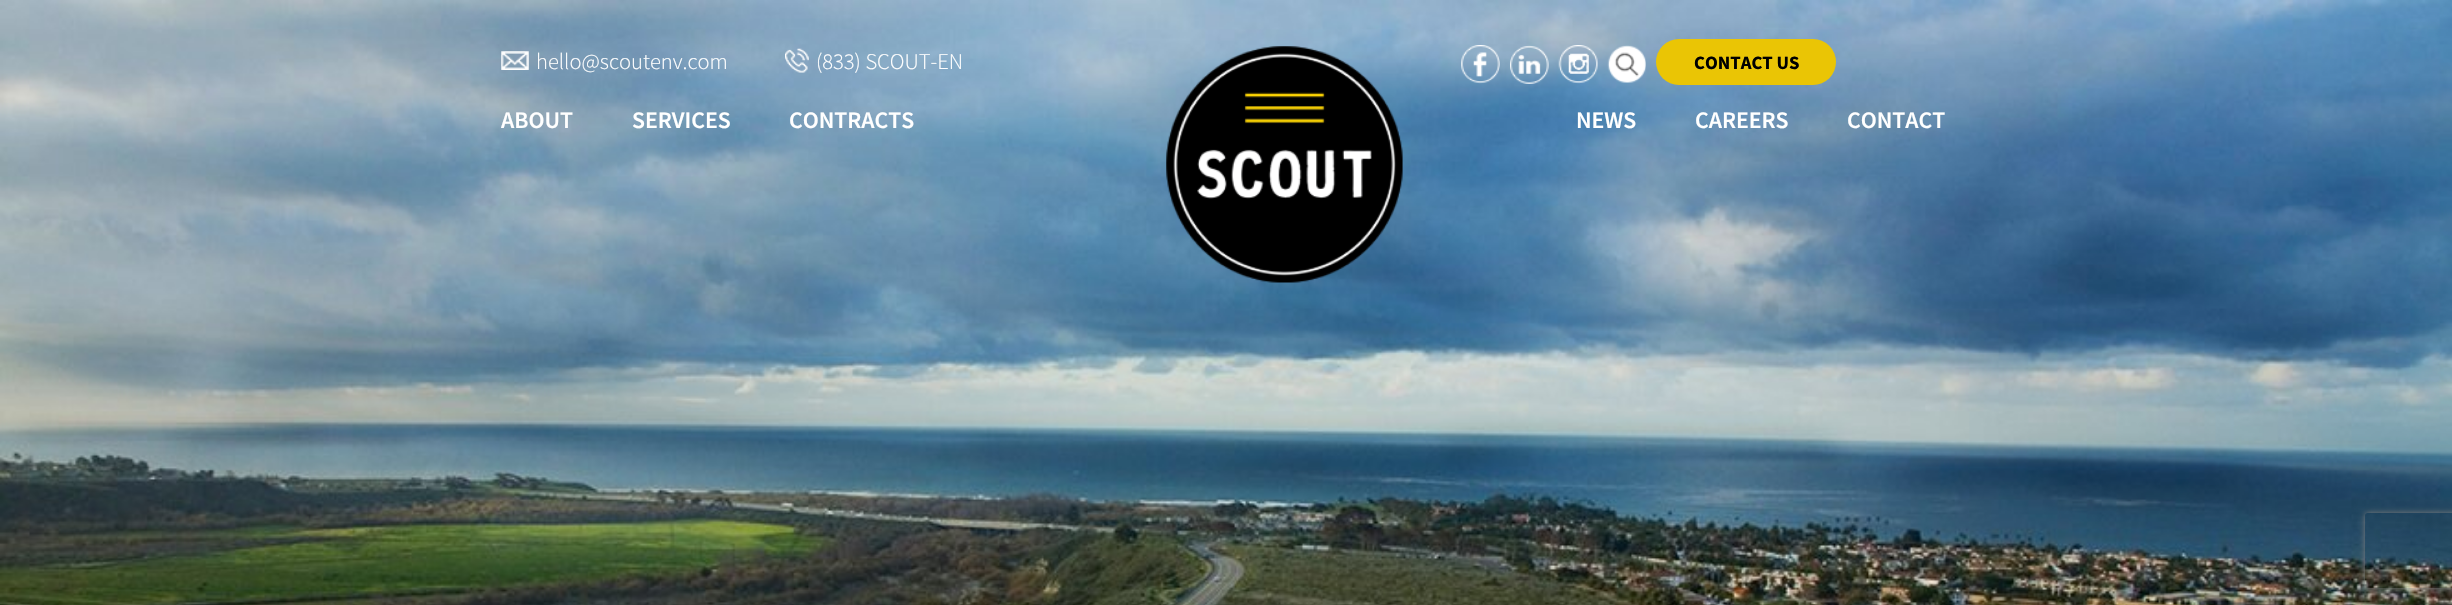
void draw(SkCanvas* canvas) {
    SkPaint paint;
    paint.setAntiAlias(true);
    auto face = [&](const char* family, int weight, float size, bool italic = false) {
        SkFontStyle style(weight, SkFontStyle::kNormal_Width,
            italic ? SkFontStyle::kItalic_Slant : SkFontStyle::kUpright_Slant);
        SkFont result(fontMgr->matchFamilyStyle(family, style), size);
        result.setSubpixel(true);
        return result;
    };
    auto write = [&](const char* s, float x, float y, const SkFont& font, SkColor color) {
        SkPaint ink(SkColor4f::FromColor(color));
        ink.setAntiAlias(true);
        canvas->drawString(s, x, y, font, ink);
    };
    auto card = [&](float x, float y, float w, float h, float radius, SkColor color) {
        SkPaint ink(SkColor4f::FromColor(color));
        ink.setAntiAlias(true);
        canvas->drawRoundRect(SkRect::MakeXYWH(x, y, w, h), radius, radius, ink);
    };
    auto paste = [&](const char* path, float x, float y, float w, float h) {
        auto image = SkImages::DeferredFromEncodedData(SkData::MakeFromFileName(path));
        canvas->drawImageRect(image, SkRect::MakeXYWH(x, y, w, h), SkSamplingOptions());
    };
    canvas->clear(SK_ColorWHITE);
    paste("pic1.png", 0, 0, 2452, 605);
    paste("pic2.png", 501, 51, 28, 19);
    auto kFont1 = face("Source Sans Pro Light", 300, 22.5f);
    write("hello@scoutenv.com", 536, 69, kFont1, SK_ColorWHITE);
    paste("pic3.png", 785, 48, 24, 25);
    write("(833) SCOUT-EN", 816, 69, kFont1, SK_ColorWHITE);
    paste("pic4.png", 1461, 45, 39, 39);
    paste("pic5.png", 1510, 45, 39, 39);
    paste("pic6.png", 1558, 45, 40, 39);
    paste("pic7.png", 1607, 45, 39, 38);
    card(1656, 39, 180, 46, 23, SkColorSetRGB(234, 197, 5));
    auto kFont2 = face("Source Sans Pro", 700, 18.75f);
    write("CONTACT US", 1694, 69, kFont2, SK_ColorBLACK);
    auto kFont3 = face("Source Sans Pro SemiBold", 600, 23.75f);
    write("ABOUT", 501, 128, kFont3, SK_ColorWHITE);
    write("SERVICES", 632, 128, kFont3, SK_ColorWHITE);
    write("CONTRACTS", 789, 128, kFont3, SK_ColorWHITE);
    paste("pic8.png", 1166, 46, 237, 237);
    write("NEWS", 1576, 128, kFont3, SK_ColorWHITE);
    write("CAREERS", 1695, 128, kFont3, SK_ColorWHITE);
    write("CONTACT", 1847, 128, kFont3, SK_ColorWHITE);
    canvas->save();
    canvas->clipPath(SkPathBuilder(SkPathFillType::kEvenOdd).moveTo(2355, 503).lineTo(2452, 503).lineTo(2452, 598).lineTo(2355, 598).close().moveTo(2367.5f, 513).lineTo(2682.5f, 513).cubicTo(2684, 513, 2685, 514, 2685, 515.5f).lineTo(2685, 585.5f).cubicTo(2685, 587, 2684, 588, 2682.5f, 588).lineTo(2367.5f, 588).cubicTo(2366, 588, 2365, 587, 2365, 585.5f).lineTo(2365, 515.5f).cubicTo(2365, 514, 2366, 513, 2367.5f, 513).close().detach(), true);
    paint.setColor(SkColorSetRGB(128, 128, 128));
    paint.setMaskFilter(SkMaskFilter::MakeBlur(kNormal_SkBlurStyle, 3));
    canvas->drawRoundRect(SkRect::MakeXYWH(2365, 513, 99, 75), 2.5f, 2.5f, paint);
    paint.setMaskFilter(nullptr);
    canvas->restore();
}
